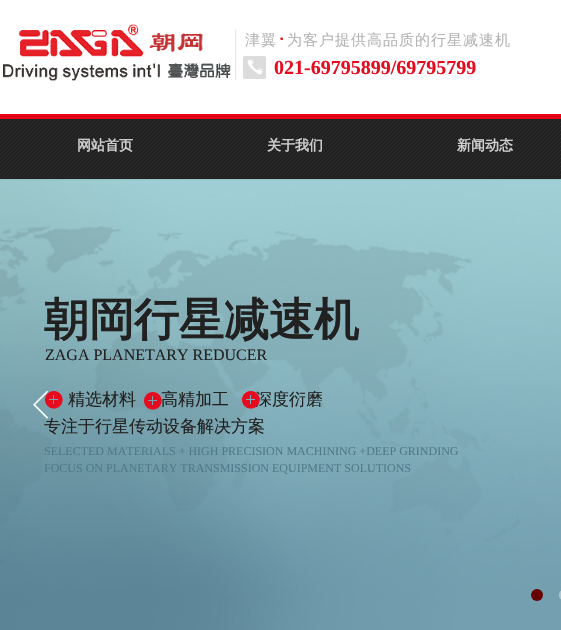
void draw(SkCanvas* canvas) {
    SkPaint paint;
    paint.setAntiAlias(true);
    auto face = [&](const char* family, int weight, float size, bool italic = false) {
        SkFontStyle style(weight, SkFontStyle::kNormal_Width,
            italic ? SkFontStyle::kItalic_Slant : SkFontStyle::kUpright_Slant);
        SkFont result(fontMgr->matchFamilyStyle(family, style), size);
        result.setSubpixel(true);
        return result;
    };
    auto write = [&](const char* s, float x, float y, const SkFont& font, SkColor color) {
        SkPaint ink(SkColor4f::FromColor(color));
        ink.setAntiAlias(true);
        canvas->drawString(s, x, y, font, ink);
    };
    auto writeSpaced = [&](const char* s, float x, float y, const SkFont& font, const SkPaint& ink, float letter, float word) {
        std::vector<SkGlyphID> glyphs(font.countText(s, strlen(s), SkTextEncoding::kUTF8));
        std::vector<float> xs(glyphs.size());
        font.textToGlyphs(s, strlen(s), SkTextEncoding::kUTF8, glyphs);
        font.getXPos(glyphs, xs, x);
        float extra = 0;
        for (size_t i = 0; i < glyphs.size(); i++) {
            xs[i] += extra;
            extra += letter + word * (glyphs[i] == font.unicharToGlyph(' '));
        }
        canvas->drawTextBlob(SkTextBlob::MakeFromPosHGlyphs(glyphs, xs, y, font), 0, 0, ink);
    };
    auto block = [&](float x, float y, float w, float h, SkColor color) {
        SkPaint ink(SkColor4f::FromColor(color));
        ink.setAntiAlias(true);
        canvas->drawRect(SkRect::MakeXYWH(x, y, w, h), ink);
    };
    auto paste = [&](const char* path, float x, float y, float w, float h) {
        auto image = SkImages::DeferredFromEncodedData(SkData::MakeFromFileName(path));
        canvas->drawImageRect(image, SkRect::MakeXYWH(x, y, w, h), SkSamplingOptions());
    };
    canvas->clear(SK_ColorWHITE);
    paste("pic1.png", 3, 24, 228, 57);
    block(235, 30, 1, 50, SkColorSetRGB(229, 229, 229));
    auto kFont1 = face("WenQuanYi Zen Hei", 500, 15);
    paint.setColor(SkColorSetRGB(181, 181, 181));
    writeSpaced("津翼", 245, 45, kFont1, paint, 1, 0);
    writeSpaced("为客户提供高品质的行星减速机", 287, 45, kFont1, paint, 1, 0);
    auto kFont2 = face("Liberation Serif", 700, 16);
    write("·", 279, 44, kFont2, SkColorSetRGB(230, 11, 30));
    paste("pic2.png", 243, 56, 23, 23);
    auto kFont3 = face("Liberation Serif", 700, 20);
    write("021-69795899/69795799", 274, 74, kFont3, SkColorSetRGB(230, 11, 30));
    block(0, 114, 561, 5, SkColorSetRGB(229, 2, 22));
    block(0, 119, 561, 60, SkColorSetRGB(33, 33, 33));
    paste("pic3.png", 0, 119, 561, 60);
    auto kFont4 = face("WenQuanYi Zen Hei", 700, 14);
    write("网站首页", 77, 150, kFont4, SkColorSetRGB(206, 205, 205));
    write("关于我们", 267, 150, kFont4, SkColorSetRGB(206, 205, 205));
    write("新闻动态", 457, 150, kFont4, SkColorSetRGB(206, 205, 205));
    paste("pic4.png", 0, 179, 561, 451);
    paste("pic5.png", 33, 390, 16, 29);
    paint.setColor(SkColorSetRGB(102, 0, 0));
    canvas->drawCircle(537, 595, 6, paint);
    paint.setColor(SkColorSetRGB(172, 197, 207));
    canvas->drawPath(SkPathBuilder().moveTo(565, 589).lineTo(561, 589).lineTo(561, 601).lineTo(565, 601).cubicTo(561.5f, 601, 559, 598.5f, 559, 595).cubicTo(559, 591.5f, 561.5f, 589, 565, 589).close().detach(), paint);
    auto kFont5 = face("WenQuanYi Zen Hei", 700, 45);
    write("朝岡行星减速机", 44, 335, kFont5, SkColorSetRGB(33, 33, 33));
    auto kFont6 = face("Liberation Serif", 400, 16);
    write("ZAGA PLANETARY REDUCER", 45, 360, kFont6, SkColorSetRGB(33, 33, 33));
    auto kFont7 = face("WenQuanYi Zen Hei", 500, 17);
    write("精选材料", 68, 405, kFont7, SkColorSetRGB(33, 33, 33));
    write("高精加工", 161, 405, kFont7, SkColorSetRGB(33, 33, 33));
    write("深度衍磨", 255, 405, kFont7, SkColorSetRGB(33, 33, 33));
    write("专注于行星传动设备解决方案", 44, 432, kFont7, SkColorSetRGB(33, 33, 33));
    auto kFont8 = face("Liberation Serif", 400, 12);
    write("SELECTED MATERIALS + HIGH PRECISION MACHINING +DEEP GRINDING", 44, 455, kFont8, SkColorSetRGB(80, 121, 137));
    write("FOCUS ON PLANETARY TRANSMISSION EQUIPMENT SOLUTIONS", 44, 472, kFont8, SkColorSetRGB(80, 121, 137));
    paste("pic6.png", 45, 391, 18, 18);
    paste("pic7.png", 144, 392, 18, 18);
    paste("pic8.png", 242, 391, 18, 18);
}
